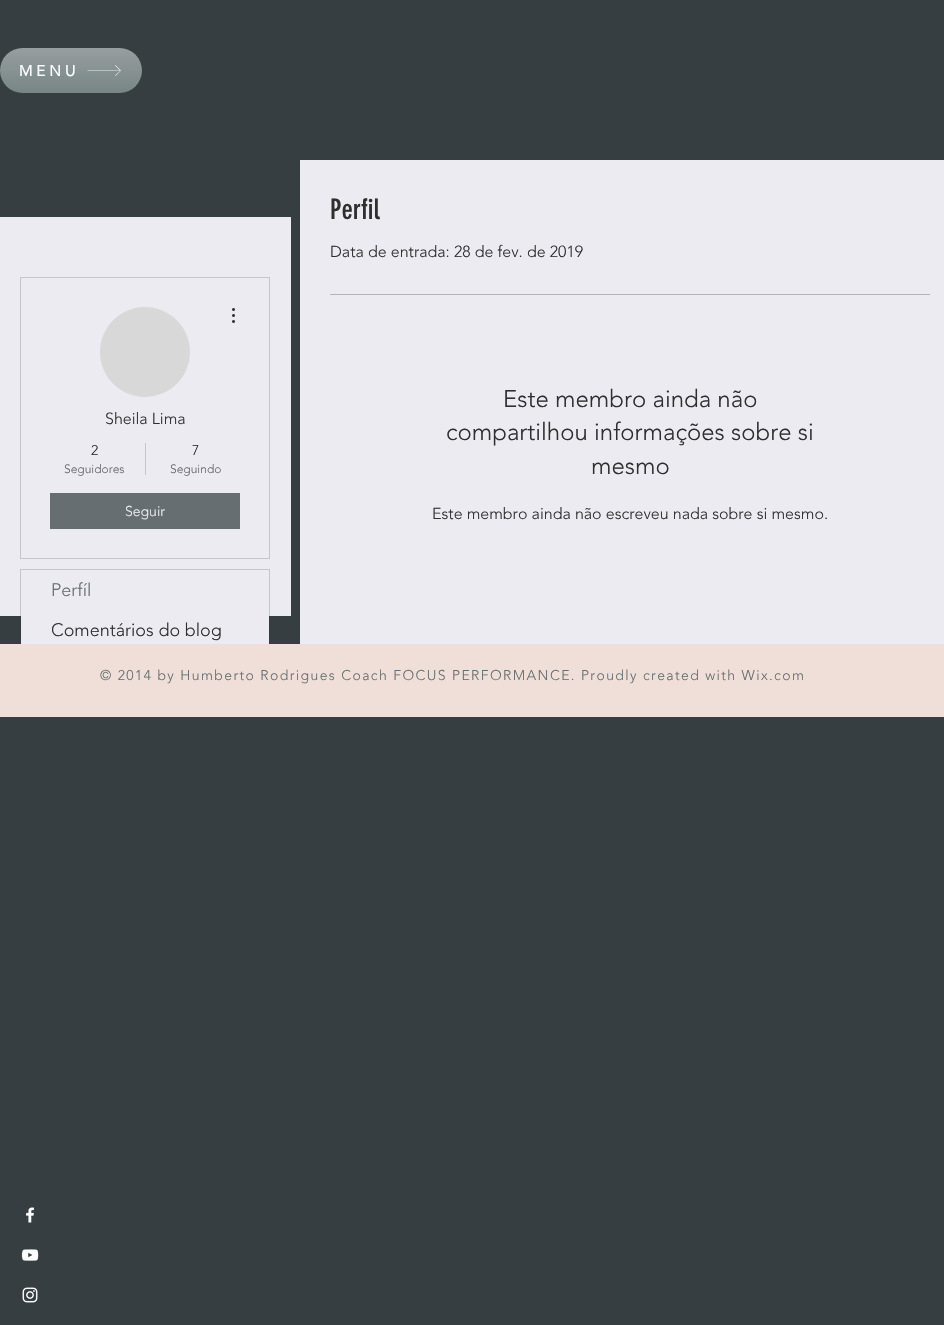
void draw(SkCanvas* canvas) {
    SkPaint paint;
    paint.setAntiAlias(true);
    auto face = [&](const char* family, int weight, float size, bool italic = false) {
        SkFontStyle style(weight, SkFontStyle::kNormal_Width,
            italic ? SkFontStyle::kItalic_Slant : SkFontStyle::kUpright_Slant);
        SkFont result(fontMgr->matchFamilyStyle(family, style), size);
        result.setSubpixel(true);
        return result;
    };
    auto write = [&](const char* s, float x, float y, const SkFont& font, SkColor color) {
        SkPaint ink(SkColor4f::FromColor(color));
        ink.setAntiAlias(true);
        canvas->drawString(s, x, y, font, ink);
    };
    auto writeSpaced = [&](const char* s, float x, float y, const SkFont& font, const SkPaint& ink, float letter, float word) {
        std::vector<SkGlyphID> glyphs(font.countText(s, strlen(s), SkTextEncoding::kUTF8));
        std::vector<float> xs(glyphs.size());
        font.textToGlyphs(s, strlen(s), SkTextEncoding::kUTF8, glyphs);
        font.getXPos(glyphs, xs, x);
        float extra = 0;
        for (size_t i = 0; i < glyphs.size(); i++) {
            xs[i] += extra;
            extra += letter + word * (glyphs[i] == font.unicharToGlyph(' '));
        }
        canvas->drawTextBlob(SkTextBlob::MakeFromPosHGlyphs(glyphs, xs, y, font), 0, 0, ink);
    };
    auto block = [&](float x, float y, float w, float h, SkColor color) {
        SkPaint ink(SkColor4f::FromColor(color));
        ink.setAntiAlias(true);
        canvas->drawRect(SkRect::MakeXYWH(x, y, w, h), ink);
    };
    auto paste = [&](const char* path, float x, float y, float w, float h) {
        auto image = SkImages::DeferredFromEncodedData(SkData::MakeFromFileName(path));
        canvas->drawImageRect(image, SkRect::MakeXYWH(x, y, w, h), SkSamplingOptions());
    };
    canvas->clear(SkColorSetRGB(54, 62, 65));
    {
        const SkColor colors[] = {SkColorSetRGB(151, 158, 160), SkColorSetRGB(119, 134, 132)};
        const float stops[] = {0, 1};
        const SkPoint ends[] = {{71, 48}, {71, 93}};
        paint.setShader(SkGradientShader::MakeLinear(ends, colors, stops, 2, SkTileMode::kClamp));
        paint.setAlpha(255);
    }
    canvas->drawRoundRect(SkRect::MakeXYWH(0, 48, 142, 45), 22.5f, 22.5f, paint);
    auto kFont1 = face("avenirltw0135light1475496", 700, 15);
    paint.setShader(nullptr);
    paint.setColor(SK_ColorWHITE);
    writeSpaced("MENU", 19, 76, kFont1, paint, 4, 0);
    paint.setColor(SkColorSetRGB(237, 235, 242));
    canvas->drawPath(SkPathBuilder().moveTo(115.5f, 65).lineTo(115, 65.5f).lineTo(120, 70.5f).lineTo(87.5f, 70.5f).lineTo(87.5f, 71).lineTo(120, 71).lineTo(115, 75.5f).lineTo(115.5f, 76).lineTo(121, 70.5f).close().detach(), paint);
    block(0, 217, 291, 399, SkColorSetRGB(237, 235, 242));
    paint.setStyle(SkPaint::kStroke_Style);
    paint.setStrokeWidth(1);
    paint.setColor(SkColorSetRGB(199, 197, 203));
    canvas->drawRect(SkRect::MakeXYWH(20.5f, 277.5f, 249, 281), paint);
    paint.setStyle(SkPaint::kFill_Style);
    paint.setColor(SkColorSetRGB(216, 216, 216));
    canvas->drawCircle(145, 352, 45, paint);
    paste("pic1.png", 232, 308, 3, 15);
    auto kFont2 = face("avenirltw0135light1475496", 300, 16);
    write("Sheila Lima", 105, 424, kFont2, SkColorSetRGB(47, 47, 48));
    auto kFont3 = face("avenirltw0135light1475496", 300, 14);
    write("2", 91, 455, kFont3, SkColorSetRGB(47, 47, 48));
    auto kFont4 = face("avenirltw0135light1475496", 300, 12);
    write("Seguidores", 64, 473, kFont4, SkColorSetRGB(104, 103, 106));
    block(145, 443, 1, 32, SkColorSetRGB(199, 197, 203));
    write("7", 192, 455, kFont3, SkColorSetRGB(47, 47, 48));
    write("Seguindo", 170, 473, kFont4, SkColorSetRGB(104, 103, 106));
    block(50, 493, 190, 36, SkColorSetRGB(103, 110, 113));
    write("Seguir", 125, 516, kFont3, SkColorSetRGB(237, 235, 242));
    paint.setStyle(SkPaint::kStroke_Style);
    paint.setColor(SkColorSetARGB(51, 47, 47, 48));
    canvas->drawRect(SkRect::MakeXYWH(20.5f, 569.5f, 249, 121), paint);
    auto kFont5 = face("avenirltw0135light1475496", 300, 18);
    write("Perfíl", 51, 596, kFont5, SkColorSetRGB(103, 110, 113));
    block(21, 616, 248, 28, SkColorSetRGB(237, 235, 242));
    write("Comentários do blog", 51, 636, kFont5, SkColorSetRGB(47, 47, 48));
    block(300, 160, 644, 484, SkColorSetRGB(237, 235, 242));
    auto kFont6 = face("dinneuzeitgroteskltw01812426", 400, 28);
    write("Perfil", 330, 219, kFont6, SkColorSetRGB(47, 47, 48));
    write("Data de entrada: 28 de fev. de 2019", 330, 257, kFont2, SkColorSetRGB(47, 47, 48));
    block(330, 294, 600, 1, SkColorSetRGB(180, 179, 184));
    auto kFont7 = face("avenirltw0135light1475496", 300, 24);
    write("Este membro ainda não", 503, 407, kFont7, SkColorSetRGB(47, 47, 48));
    write("compartilhou informações sobre si", 446, 440, kFont7, SkColorSetRGB(47, 47, 48));
    write("mesmo", 591, 474, kFont7, SkColorSetRGB(47, 47, 48));
    write("Este membro ainda não escreveu nada sobre si mesmo.", 432, 519, kFont2, SkColorSetRGB(47, 47, 48));
    block(0, 644, 944, 73, SkColorSetRGB(240, 223, 216));
    paint.setStyle(SkPaint::kFill_Style);
    paint.setColor(SkColorSetRGB(103, 110, 113));
    writeSpaced("© 2014 by Humberto Rodrigues Coach FOCUS PERFORMANCE. Proudly created with Wix.com", 100, 680, kFont3, paint, 1.4f, 0);
    paste("pic2.png", 26, 1207, 9, 16);
    paste("pic3.png", 21, 1249, 18, 12);
    paste("pic4.png", 22, 1287, 16, 16);
}
